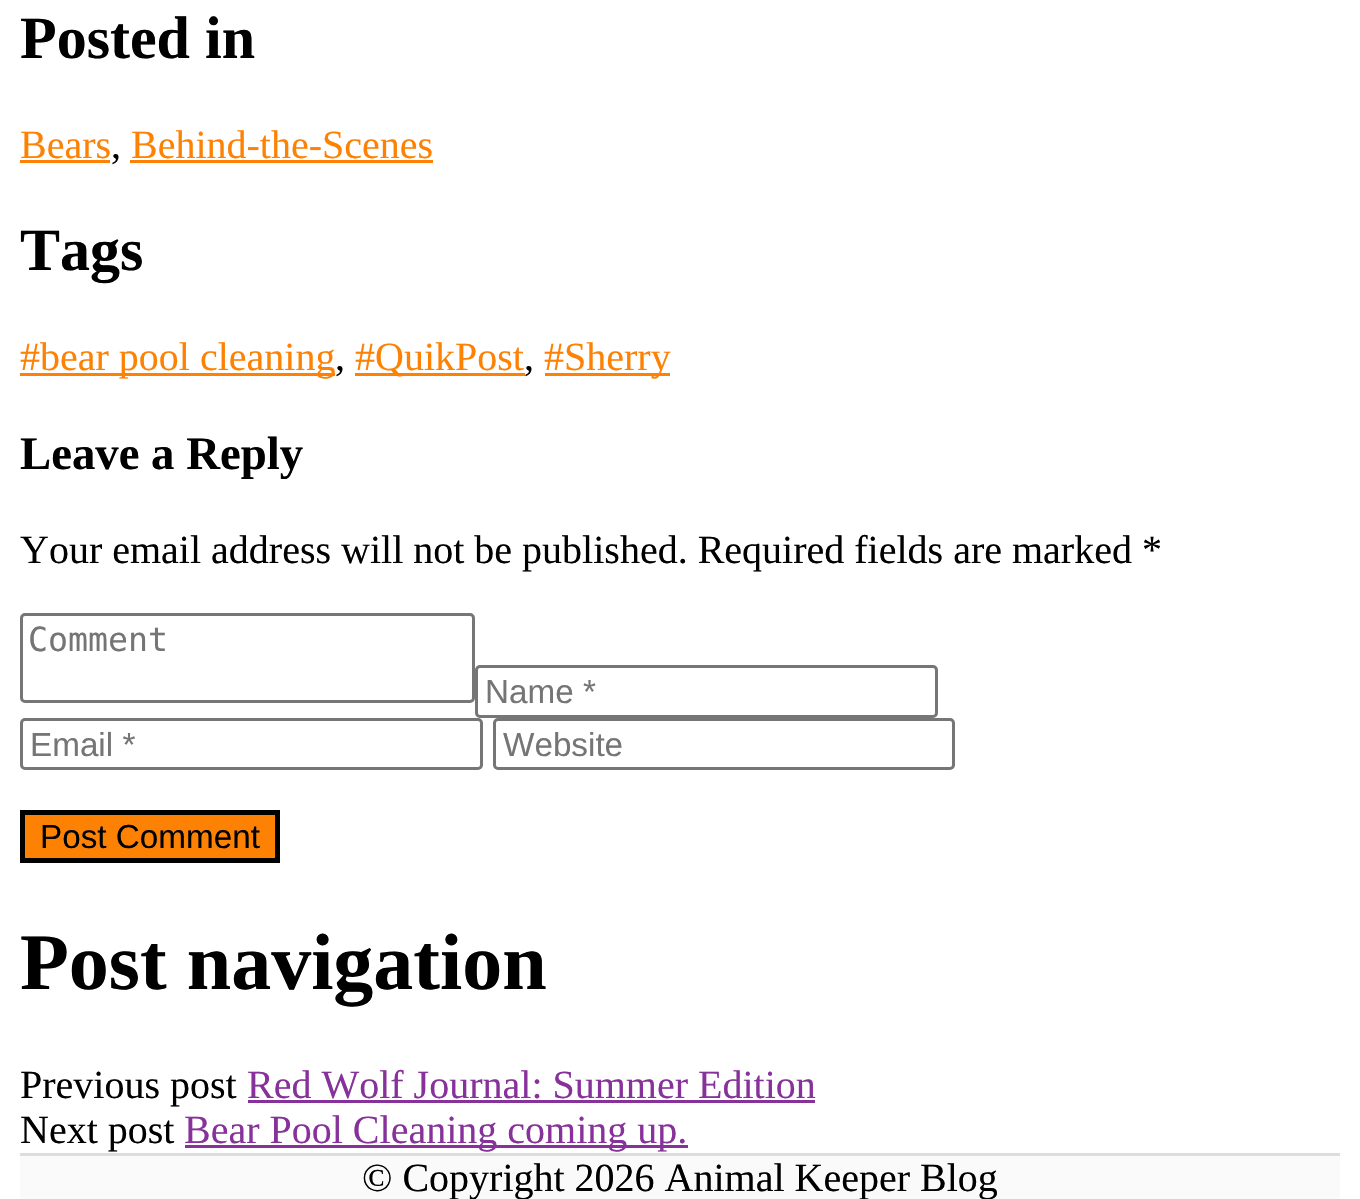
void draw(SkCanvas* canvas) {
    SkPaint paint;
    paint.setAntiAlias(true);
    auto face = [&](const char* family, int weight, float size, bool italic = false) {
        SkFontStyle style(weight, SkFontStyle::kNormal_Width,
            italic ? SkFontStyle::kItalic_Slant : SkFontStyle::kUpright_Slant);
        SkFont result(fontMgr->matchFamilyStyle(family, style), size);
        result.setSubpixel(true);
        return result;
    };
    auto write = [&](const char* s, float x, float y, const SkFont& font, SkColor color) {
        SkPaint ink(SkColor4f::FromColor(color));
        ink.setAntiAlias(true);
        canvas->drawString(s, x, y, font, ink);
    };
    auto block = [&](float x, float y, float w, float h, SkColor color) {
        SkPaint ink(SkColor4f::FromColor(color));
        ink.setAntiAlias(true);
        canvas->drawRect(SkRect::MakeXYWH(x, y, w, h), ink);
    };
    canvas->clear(SK_ColorWHITE);
    auto kFont1 = face("Liberation Serif", 700, 60);
    write("Posted in", 20, 58, kFont1, SK_ColorBLACK);
    auto kFont2 = face("Liberation Serif", 400, 40);
    write("Bears", 20, 158, kFont2, SkColorSetRGB(253, 130, 4));
    block(20, 160, 90, 3, SkColorSetRGB(253, 130, 4));
    write(",", 111, 158, kFont2, SK_ColorBLACK);
    write("Behind-the-Scenes", 131, 158, kFont2, SkColorSetRGB(253, 130, 4));
    block(130, 160, 303, 3, SkColorSetRGB(253, 130, 4));
    write("Tags", 20, 270, kFont1, SK_ColorBLACK);
    block(20, 373, 315, 3, SkColorSetRGB(253, 130, 4));
    write("#bear pool cleaning", 20, 370, kFont2, SkColorSetRGB(253, 130, 4));
    write(",", 335, 370, kFont2, SK_ColorBLACK);
    block(355, 373, 170, 3, SkColorSetRGB(253, 130, 4));
    write("#QuikPost", 355, 370, kFont2, SkColorSetRGB(253, 130, 4));
    write(",", 524, 370, kFont2, SK_ColorBLACK);
    block(545, 373, 125, 3, SkColorSetRGB(253, 130, 4));
    write("#Sherry", 544, 370, kFont2, SkColorSetRGB(253, 130, 4));
    auto kFont3 = face("Liberation Serif", 700, 46.75f);
    write("Leave a Reply", 20, 469, kFont3, SK_ColorBLACK);
    write("Your email address will not be published. Required fields are marked *", 20, 563, kFont2, SK_ColorBLACK);
    paint.setStyle(SkPaint::kStroke_Style);
    paint.setStrokeWidth(3);
    paint.setColor(SkColorSetRGB(118, 118, 118));
    canvas->drawRoundRect(SkRect::MakeXYWH(21.5f, 614.5f, 452, 87), 3.5f, 3.5f, paint);
    auto kFont4 = face("DejaVu Sans Mono", 400, 33.25f);
    write("Comment", 28, 651, kFont4, SkColorSetRGB(117, 117, 117));
    canvas->drawRoundRect(SkRect::MakeXYWH(476.5f, 666.5f, 460, 50), 3.5f, 3.5f, paint);
    auto kFont5 = face("Liberation Sans", 400, 33.25f);
    write("Name *", 485, 703, kFont5, SkColorSetRGB(117, 117, 117));
    canvas->drawRoundRect(SkRect::MakeXYWH(21.5f, 719.5f, 460, 49), 3.5f, 3.5f, paint);
    write("Email *", 30, 756, kFont5, SkColorSetRGB(117, 117, 117));
    canvas->drawRoundRect(SkRect::MakeXYWH(494.5f, 719.5f, 459, 49), 3.5f, 3.5f, paint);
    write("Website", 503, 756, kFont5, SkColorSetRGB(117, 117, 117));
    paint.setStyle(SkPaint::kFill_Style);
    paint.setColor(SkColorSetRGB(253, 130, 4));
    canvas->drawRect(SkRect::MakeXYWH(22.5f, 812.5f, 255, 48), paint);
    paint.setStyle(SkPaint::kStroke_Style);
    paint.setStrokeWidth(5);
    paint.setColor(SK_ColorBLACK);
    canvas->drawRect(SkRect::MakeXYWH(22.5f, 812.5f, 255, 48), paint);
    write("Post Comment", 40, 848, kFont5, SK_ColorBLACK);
    auto kFont6 = face("Liberation Serif", 700, 80);
    write("Post navigation", 20, 989, kFont6, SK_ColorBLACK);
    write("Previous post", 20, 1098, kFont2, SK_ColorBLACK);
    write("Red Wolf Journal: Summer Edition", 247, 1098, kFont2, SkColorSetRGB(135, 49, 154));
    block(248, 1100, 567, 3, SkColorSetRGB(135, 49, 154));
    write("Next post", 20, 1143, kFont2, SK_ColorBLACK);
    block(185, 1145, 503, 3, SkColorSetRGB(135, 49, 154));
    write("Bear Pool Cleaning coming up.", 184, 1143, kFont2, SkColorSetRGB(135, 49, 154));
    block(20, 1156, 1320, 43, SkColorSetRGB(250, 250, 250));
    block(20, 1153, 1320, 3, SkColorSetRGB(221, 221, 221));
    write("© Copyright 2026 Animal Keeper Blog", 362, 1191, kFont2, SK_ColorBLACK);
}
